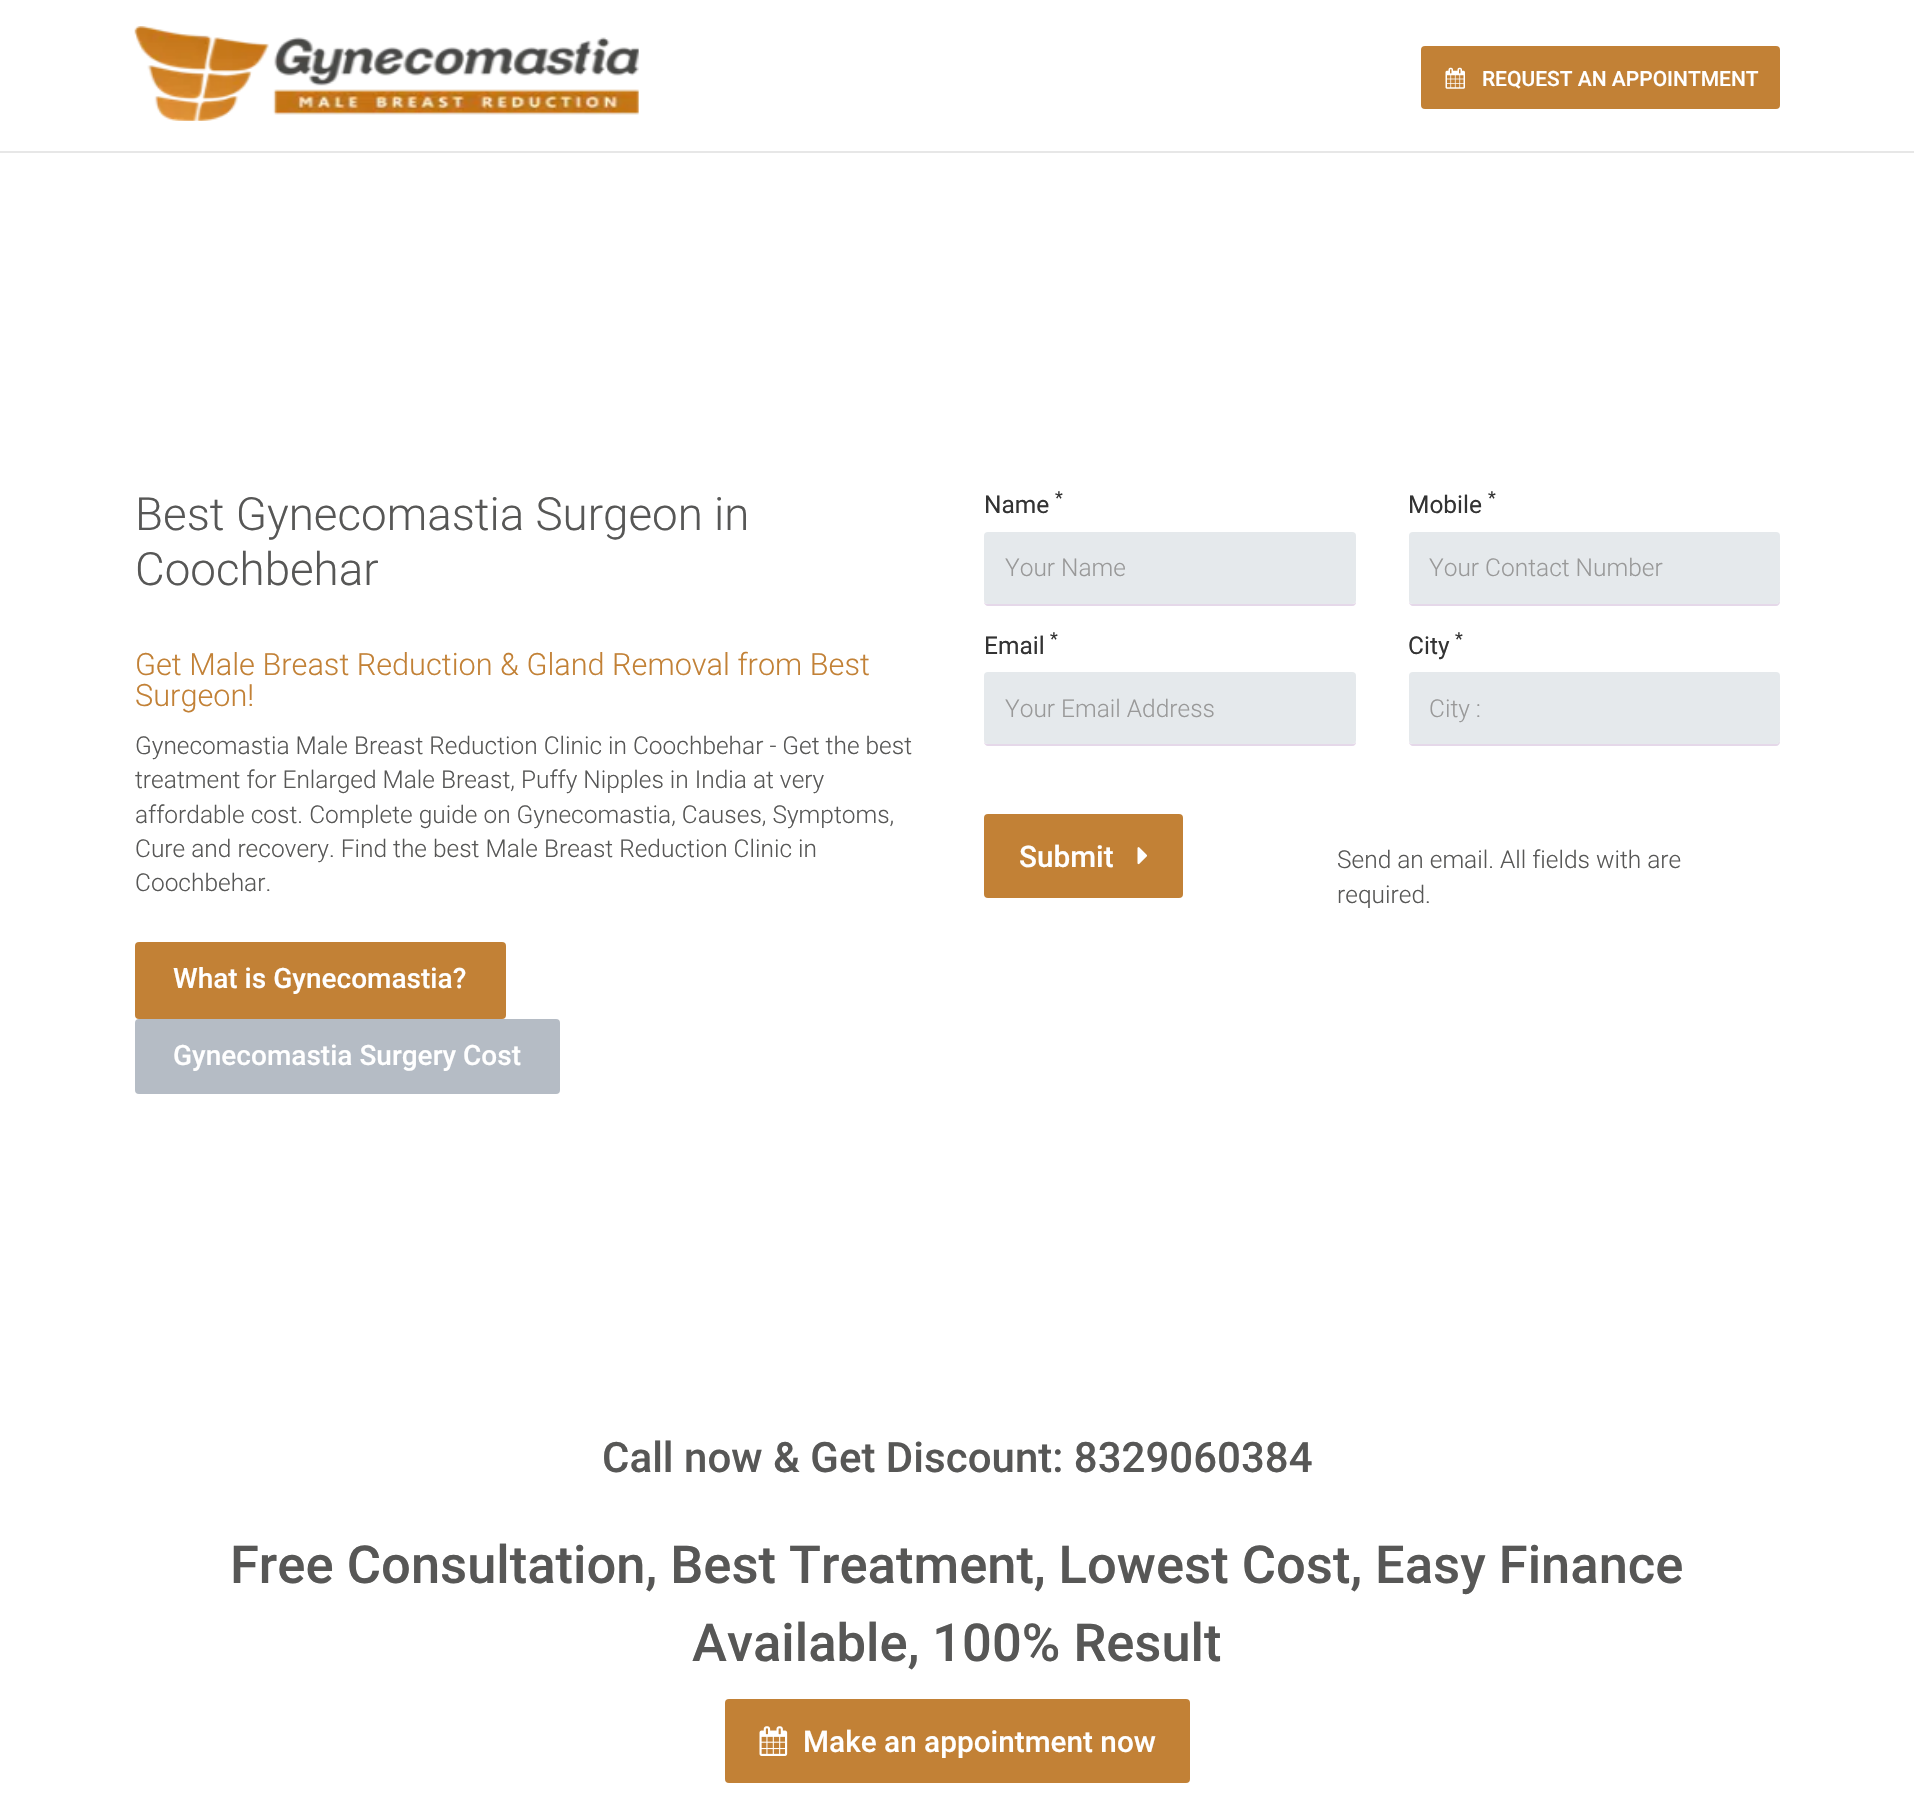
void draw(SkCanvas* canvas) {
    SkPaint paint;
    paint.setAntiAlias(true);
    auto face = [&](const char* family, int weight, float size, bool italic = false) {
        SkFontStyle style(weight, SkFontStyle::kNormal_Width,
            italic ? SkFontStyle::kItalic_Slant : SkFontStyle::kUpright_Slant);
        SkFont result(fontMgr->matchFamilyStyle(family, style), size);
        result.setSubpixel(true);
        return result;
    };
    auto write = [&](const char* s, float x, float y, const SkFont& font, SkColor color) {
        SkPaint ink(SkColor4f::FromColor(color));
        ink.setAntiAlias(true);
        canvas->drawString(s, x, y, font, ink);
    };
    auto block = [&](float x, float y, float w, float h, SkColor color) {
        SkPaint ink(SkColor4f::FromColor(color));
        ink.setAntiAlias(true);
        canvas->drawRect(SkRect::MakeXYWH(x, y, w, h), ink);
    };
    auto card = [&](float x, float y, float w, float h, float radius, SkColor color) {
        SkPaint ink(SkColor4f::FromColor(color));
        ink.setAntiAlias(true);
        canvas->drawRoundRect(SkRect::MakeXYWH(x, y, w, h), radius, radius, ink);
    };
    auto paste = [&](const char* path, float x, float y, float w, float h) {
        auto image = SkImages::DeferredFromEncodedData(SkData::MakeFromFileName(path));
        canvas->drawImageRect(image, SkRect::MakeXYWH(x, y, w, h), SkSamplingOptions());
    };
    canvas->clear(SK_ColorWHITE);
    block(0, 151, 1914, 2, SkColorSetRGB(231, 231, 231));
    paste("pic1.png", 134, 26, 505, 95);
    card(1421, 46, 359, 63, 4, SkColorSetRGB(194, 129, 54));
    paste("pic2.png", 1445, 67, 20, 22);
    auto kFont1 = face("Roboto", 500, 21);
    write("REQUEST AN APPOINTMENT", 1482, 86, kFont1, SK_ColorWHITE);
    auto kFont2 = face("Roboto", 300, 45.75f);
    write("Best Gynecomastia Surgeon in", 135, 530, kFont2, SkColorSetRGB(87, 87, 86));
    write("Coochbehar", 135, 585, kFont2, SkColorSetRGB(87, 87, 86));
    auto kFont3 = face("Roboto", 300, 30.7f);
    write("Get Male Breast Reduction & Gland Removal from Best", 135, 675, kFont3, SkColorSetRGB(194, 129, 54));
    write("Surgeon!", 135, 706, kFont3, SkColorSetRGB(194, 129, 54));
    auto kFont4 = face("Roboto", 300, 24.5f);
    write("Gynecomastia Male Breast Reduction Clinic in Coochbehar - Get the best", 135, 754, kFont4, SkColorSetRGB(87, 87, 86));
    write("treatment for Enlarged Male Breast, Puffy Nipples in India at very", 135, 788, kFont4, SkColorSetRGB(87, 87, 86));
    write("affordable cost. Complete guide on Gynecomastia, Causes, Symptoms,", 135, 823, kFont4, SkColorSetRGB(87, 87, 86));
    write("Cure and recovery. Find the best Male Breast Reduction Clinic in", 135, 857, kFont4, SkColorSetRGB(87, 87, 86));
    write("Coochbehar.", 135, 891, kFont4, SkColorSetRGB(87, 87, 86));
    card(135, 942, 371, 77, 4, SkColorSetRGB(194, 129, 54));
    auto kFont5 = face("Roboto", 500, 28);
    write("What is Gynecomastia?", 173, 988, kFont5, SK_ColorWHITE);
    card(135, 1019, 425, 75, 4, SkColorSetRGB(181, 188, 197));
    write("Gynecomastia Surgery Cost", 173, 1065, kFont5, SK_ColorWHITE);
    auto kFont6 = face("Roboto", 400, 24.5f);
    write("Name", 984, 513, kFont6, SkColorSetRGB(51, 51, 51));
    auto kFont7 = face("Roboto", 400, 18);
    write("*", 1055, 504, kFont7, SkColorSetRGB(51, 51, 51));
    paint.setColor(SkColorSetRGB(229, 216, 233));
    canvas->drawPath(SkPathBuilder().moveTo(984, 602).cubicTo(984, 604, 986, 606, 988, 606).lineTo(1352, 606).cubicTo(1355, 606, 1356, 604, 1356, 602).cubicTo(1355, 603, 1354, 604, 1353, 604).lineTo(987, 604).cubicTo(986, 604, 985, 603, 984, 602).close().detach(), paint);
    card(984, 532, 372, 72, 4, SkColorSetRGB(229, 233, 236));
    write("Your Name", 1005, 576, kFont4, SkColorSetRGB(153, 153, 153));
    write("Mobile", 1408, 513, kFont6, SkColorSetRGB(51, 51, 51));
    write("*", 1488, 504, kFont7, SkColorSetRGB(51, 51, 51));
    canvas->drawPath(SkPathBuilder().moveTo(1409, 602).cubicTo(1409, 604, 1411, 606, 1413, 606).lineTo(1776, 606).cubicTo(1778, 606, 1780, 604, 1780, 602).lineTo(1780, 537).lineTo(1780, 600).cubicTo(1780, 602, 1778, 604, 1776, 604).lineTo(1412, 604).cubicTo(1411, 604, 1410, 603, 1409, 602).close().detach(), paint);
    card(1409, 532, 371, 72, 4, SkColorSetRGB(229, 233, 236));
    write("Your Contact Number", 1429, 576, kFont4, SkColorSetRGB(153, 153, 153));
    write("Email", 984, 654, kFont6, SkColorSetRGB(51, 51, 51));
    write("*", 1050, 645, kFont7, SkColorSetRGB(51, 51, 51));
    canvas->drawPath(SkPathBuilder().moveTo(984, 742).cubicTo(984, 744, 986, 746, 988, 746).lineTo(1352, 746).cubicTo(1355, 746, 1356, 744, 1356, 742).cubicTo(1355, 743, 1354, 744, 1353, 744).lineTo(987, 744).cubicTo(986, 744, 985, 743, 984, 742).close().detach(), paint);
    card(984, 672, 372, 72, 4, SkColorSetRGB(229, 233, 236));
    write("Your Email Address", 1005, 717, kFont4, SkColorSetRGB(153, 153, 153));
    write("City", 1408, 654, kFont6, SkColorSetRGB(51, 51, 51));
    write("*", 1455, 645, kFont7, SkColorSetRGB(51, 51, 51));
    canvas->drawPath(SkPathBuilder().moveTo(1409, 742).cubicTo(1409, 744, 1411, 746, 1413, 746).lineTo(1776, 746).cubicTo(1778, 746, 1780, 744, 1780, 742).lineTo(1780, 677).lineTo(1780, 740).cubicTo(1780, 742, 1778, 744, 1776, 744).lineTo(1412, 744).cubicTo(1411, 744, 1410, 743, 1409, 742).close().detach(), paint);
    card(1409, 672, 371, 72, 4, SkColorSetRGB(229, 233, 236));
    write("City :", 1429, 717, kFont4, SkColorSetRGB(153, 153, 153));
    card(984, 814, 199, 84, 4, SkColorSetRGB(194, 129, 54));
    auto kFont8 = face("Roboto", 500, 29.75f);
    write("Submit", 1019, 867, kFont8, SK_ColorWHITE);
    paste("pic3.png", 1137, 847, 10, 18);
    write("Send an email. All fields with are", 1337, 868, kFont4, SkColorSetRGB(87, 87, 86));
    write("required.", 1337, 903, kFont4, SkColorSetRGB(87, 87, 86));
    auto kFont9 = face("Roboto", 500, 42);
    write("Call now & Get Discount: 8329060384", 602, 1472, kFont9, SkColorSetRGB(87, 87, 86));
    auto kFont10 = face("Roboto", 500, 52.5f);
    write("Free Consultation, Best Treatment, Lowest Cost, Easy Finance", 230, 1583, kFont10, SkColorSetRGB(87, 87, 86));
    write("Available, 100% Result", 692, 1661, kFont10, SkColorSetRGB(87, 87, 86));
    card(725, 1699, 465, 84, 4, SkColorSetRGB(194, 129, 54));
    paste("pic4.png", 759, 1726, 29, 30);
    write("Make an appointment now", 803, 1752, kFont8, SK_ColorWHITE);
}
